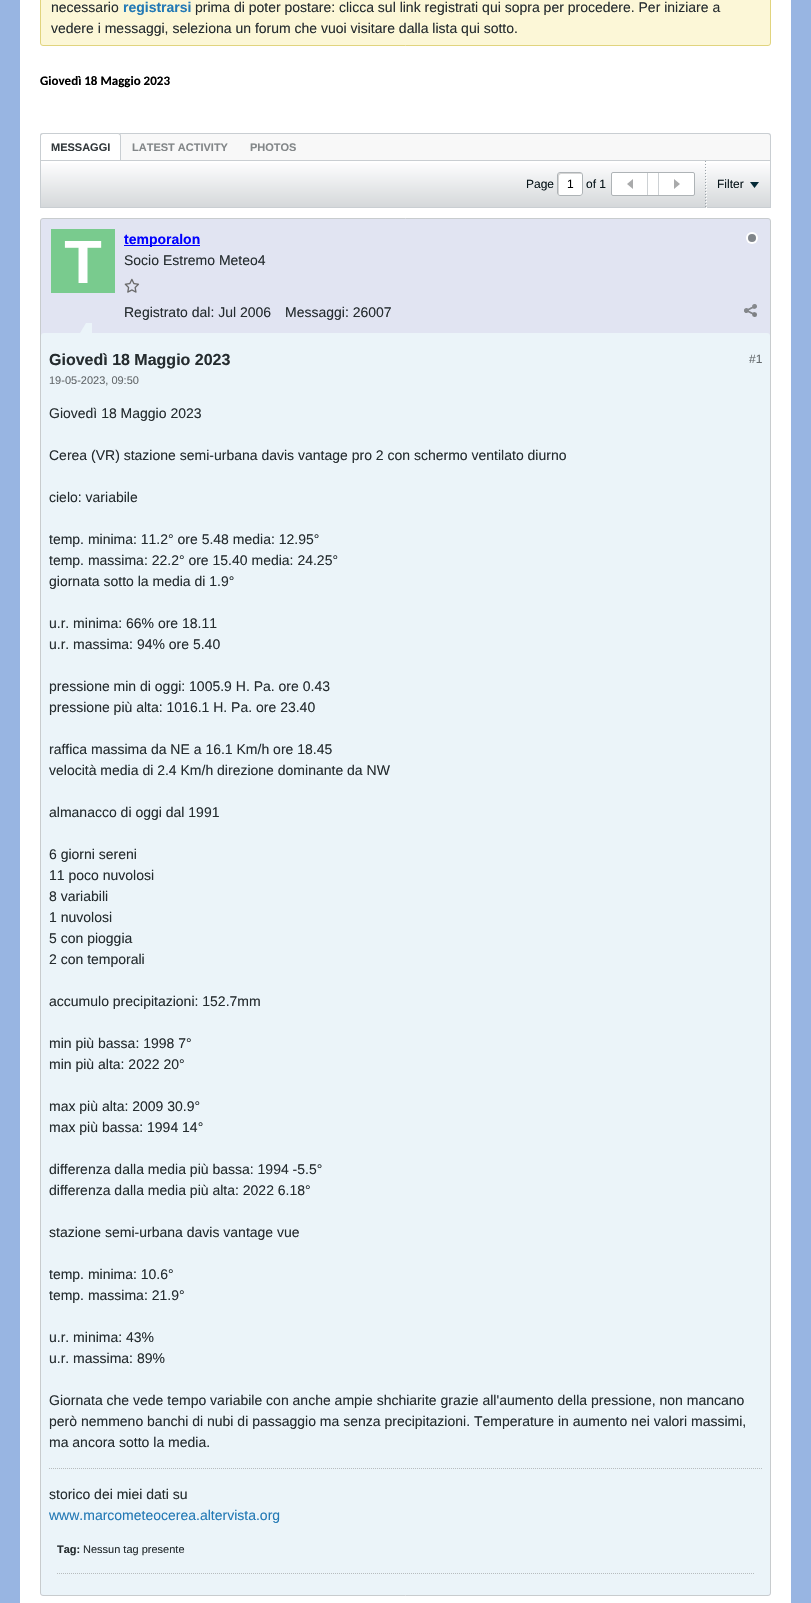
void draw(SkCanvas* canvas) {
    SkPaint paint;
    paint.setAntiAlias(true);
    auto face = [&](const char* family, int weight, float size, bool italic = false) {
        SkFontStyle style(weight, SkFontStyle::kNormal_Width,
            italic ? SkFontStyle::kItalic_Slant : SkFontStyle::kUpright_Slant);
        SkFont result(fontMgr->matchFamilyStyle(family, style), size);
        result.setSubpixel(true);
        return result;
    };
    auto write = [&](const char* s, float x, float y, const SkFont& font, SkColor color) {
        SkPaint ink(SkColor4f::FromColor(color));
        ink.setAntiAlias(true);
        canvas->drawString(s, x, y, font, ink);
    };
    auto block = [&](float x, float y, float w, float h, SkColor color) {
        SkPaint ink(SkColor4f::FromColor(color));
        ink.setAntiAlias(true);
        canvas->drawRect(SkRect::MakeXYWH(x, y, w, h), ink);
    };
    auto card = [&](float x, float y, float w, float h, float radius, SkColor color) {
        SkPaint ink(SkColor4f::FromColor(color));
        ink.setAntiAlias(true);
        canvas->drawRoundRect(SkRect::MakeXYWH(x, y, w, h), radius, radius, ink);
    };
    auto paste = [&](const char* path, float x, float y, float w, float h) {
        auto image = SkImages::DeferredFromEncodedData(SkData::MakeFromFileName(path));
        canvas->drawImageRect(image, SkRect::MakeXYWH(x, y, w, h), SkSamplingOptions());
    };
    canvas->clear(SkColorSetRGB(152, 181, 226));
    block(20, 0, 771, 1603, SK_ColorWHITE);
    paint.setColor(SkColorSetRGB(252, 247, 215));
    canvas->drawRoundRect(SkRect::MakeXYWH(40.5f, -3.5f, 730, 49), 2.5f, 2.5f, paint);
    paint.setStyle(SkPaint::kStroke_Style);
    paint.setStrokeWidth(1);
    paint.setColor(SkColorSetRGB(225, 212, 126));
    canvas->drawRoundRect(SkRect::MakeXYWH(40.5f, -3.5f, 730, 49), 2.5f, 2.5f, paint);
    auto kFont1 = face("Liberation Sans", 400, 14);
    write("necessario", 51, 12, kFont1, SkColorSetRGB(37, 44, 47));
    auto kFont2 = face("Liberation Sans", 700, 14);
    write("registrarsi", 123, 12, kFont2, SkColorSetRGB(35, 121, 181));
    write("prima di poter postare: clicca sul link registrati qui sopra per procedere. Per iniziare a", 195, 12, kFont1, SkColorSetRGB(37, 44, 47));
    write("vedere i messaggi, seleziona un forum che vuoi visitare dalla lista qui sotto.", 51, 33, kFont1, SkColorSetRGB(37, 44, 47));
    auto kFont3 = face("Carlito", 700, 13);
    write("Giovedì 18 Maggio 2023", 40, 85, kFont3, SK_ColorBLACK);
    paint.setStyle(SkPaint::kFill_Style);
    paint.setColor(SkColorSetRGB(248, 248, 248));
    canvas->drawPath(SkPathBuilder().moveTo(43, 133).lineTo(768, 133).cubicTo(769.5f, 133, 771, 134.5f, 771, 136).lineTo(771, 160).lineTo(40, 160).lineTo(40, 136).cubicTo(40, 134.5f, 41.5f, 133, 43, 133).close().detach(), paint);
    paint.setColor(SkColorSetRGB(201, 206, 210));
    canvas->drawPath(SkPathBuilder(SkPathFillType::kEvenOdd).moveTo(43, 133).lineTo(768, 133).cubicTo(770, 133, 771, 134, 771, 136).lineTo(771, 160).lineTo(40, 160).lineTo(40, 136).cubicTo(40, 134, 41, 133, 43, 133).close().moveTo(43, 134).lineTo(768, 134).cubicTo(769, 134, 770, 135, 770, 136).lineTo(770, 160).lineTo(41, 160).lineTo(41, 136).cubicTo(41, 135, 42, 134, 43, 134).close().detach(), paint);
    paint.setColor(SkColorSetRGB(248, 248, 248));
    canvas->drawPath(SkPathBuilder().moveTo(44, 134).lineTo(305, 134).cubicTo(306.5f, 134, 308, 135.5f, 308, 137).lineTo(308, 160).lineTo(41, 160).lineTo(41, 137).cubicTo(41, 135.5f, 42.5f, 134, 44, 134).close().detach(), paint);
    paint.setColor(SK_ColorWHITE);
    canvas->drawPath(SkPathBuilder().moveTo(43, 133).lineTo(118, 133).cubicTo(119.5f, 133, 121, 134.5f, 121, 136).lineTo(121, 160).lineTo(40, 160).lineTo(40, 136).cubicTo(40, 134.5f, 41.5f, 133, 43, 133).close().detach(), paint);
    paint.setColor(SkColorSetRGB(201, 206, 210));
    canvas->drawPath(SkPathBuilder(SkPathFillType::kEvenOdd).moveTo(43, 133).lineTo(118, 133).cubicTo(120, 133, 121, 134, 121, 136).lineTo(121, 160).lineTo(40, 160).lineTo(40, 136).cubicTo(40, 134, 41, 133, 43, 133).close().moveTo(43, 134).lineTo(118, 134).cubicTo(119, 134, 120, 135, 120, 136).lineTo(120, 160).lineTo(41, 160).lineTo(41, 136).cubicTo(41, 135, 42, 134, 43, 134).close().detach(), paint);
    auto kFont4 = face("Liberation Sans", 700, 11);
    write("MESSAGGI", 51, 151, kFont4, SkColorSetRGB(52, 58, 61));
    write("LATEST ACTIVITY", 132, 151, kFont4, SkColorSetRGB(131, 135, 137));
    write("PHOTOS", 250, 151, kFont4, SkColorSetRGB(131, 135, 137));
    {
        const SkColor colors[] = {SkColorSetRGB(254, 254, 255), SkColorSetRGB(213, 216, 218)};
        const float stops[] = {0, 1};
        const SkPoint ends[] = {{406, 161}, {406, 207}};
        paint.setShader(SkGradientShader::MakeLinear(ends, colors, stops, 2, SkTileMode::kClamp));
        paint.setAlpha(255);
    }
    canvas->drawRect(SkRect::MakeXYWH(41, 163, 729, 44), paint);
    paint.setStyle(SkPaint::kStroke_Style);
    paint.setShader(nullptr);
    paint.setColor(SkColorSetRGB(201, 206, 210));
    canvas->drawRect(SkRect::MakeXYWH(40.5f, 160.5f, 730, 47), paint);
    auto kFont5 = face("Liberation Sans", 400, 12);
    write("Page", 526, 188, kFont5, SkColorSetRGB(9, 22, 27));
    card(557, 172, 26, 24, 3, SK_ColorWHITE);
    paint.setStyle(SkPaint::kFill_Style);
    paint.setColor(SkColorSetRGB(213, 213, 213));
    canvas->drawPath(SkPathBuilder().moveTo(561, 174).lineTo(581, 174).lineTo(582, 174).cubicTo(581.5f, 173.5f, 581, 173, 580, 173).lineTo(560, 173).cubicTo(559, 173, 558, 174, 558, 175).lineTo(558, 193).cubicTo(558, 194, 558.5f, 194.5f, 559, 195).lineTo(559, 194).lineTo(559, 176).cubicTo(559, 175, 560, 174, 561, 174).close().detach(), paint);
    paint.setStyle(SkPaint::kStroke_Style);
    paint.setColor(SkColorSetRGB(174, 179, 182));
    canvas->drawRoundRect(SkRect::MakeXYWH(557.5f, 172.5f, 25, 23), 2.5f, 2.5f, paint);
    write("1", 567, 188, kFont5, SK_ColorBLACK);
    write("of 1", 586, 188, kFont5, SkColorSetRGB(9, 22, 27));
    paint.setStyle(SkPaint::kFill_Style);
    paint.setColor(SK_ColorWHITE);
    canvas->drawRoundRect(SkRect::MakeXYWH(611.5f, 172.5f, 83, 23), 1.5f, 1.5f, paint);
    paint.setStyle(SkPaint::kStroke_Style);
    paint.setColor(SkColorSetRGB(174, 179, 182));
    canvas->drawRoundRect(SkRect::MakeXYWH(611.5f, 172.5f, 83, 23), 1.5f, 1.5f, paint);
    block(647, 173, 1, 22, SkColorSetRGB(205, 209, 212));
    paste("pic1.png", 627, 179, 6, 10);
    block(658, 173, 1, 22, SkColorSetRGB(205, 209, 212));
    paste("pic2.png", 674, 179, 6, 10);
    paste("pic3.png", 705, 161, 1, 46);
    paste("pic4.png", 706, 165, 1, 43);
    write("Filter", 717, 188, kFont5, SkColorSetRGB(9, 22, 27));
    paste("pic5.png", 750, 182, 9, 6);
    paint.setStyle(SkPaint::kFill_Style);
    paint.setColor(SkColorSetRGB(225, 228, 242));
    canvas->drawRoundRect(SkRect::MakeXYWH(40.5f, 218.5f, 730, 1377), 2.5f, 2.5f, paint);
    paint.setStyle(SkPaint::kStroke_Style);
    paint.setColor(SkColorSetRGB(200, 204, 206));
    canvas->drawRoundRect(SkRect::MakeXYWH(40.5f, 218.5f, 730, 1377), 2.5f, 2.5f, paint);
    paste("pic6.png", 51, 229, 64, 64);
    block(124, 245, 76, 1, SkColorSetRGB(0, 0, 255));
    write("temporalon", 124, 244, kFont2, SkColorSetRGB(0, 0, 255));
    paste("pic7.png", 746, 232, 12, 12);
    write("Socio Estremo Meteo4", 124, 265, kFont1, SkColorSetRGB(37, 44, 47));
    paste("pic8.png", 124, 278, 16, 15);
    write("Registrato dal: Jul 2006", 124, 317, kFont1, SkColorSetRGB(37, 44, 47));
    write("Messaggi: 26007", 285, 317, kFont1, SkColorSetRGB(37, 44, 47));
    paste("pic9.png", 744, 304, 13, 13);
    card(41, 333, 729, 1262, 3, SkColorSetRGB(235, 244, 249));
    block(86, 323, 6, 10, SkColorSetRGB(235, 244, 249));
    paint.setStyle(SkPaint::kFill_Style);
    paint.setColor(SkColorSetRGB(235, 244, 249));
    canvas->drawPath(SkPathBuilder().moveTo(92, 333).lineTo(80, 333).lineTo(86, 323).close().detach(), paint);
    auto kFont6 = face("Liberation Sans", 700, 16);
    write("Giovedì 18 Maggio 2023", 49, 365, kFont6, SkColorSetRGB(37, 44, 47));
    auto kFont7 = face("Liberation Sans", 400, 11);
    write("19-05-2023, 09:50", 49, 384, kFont7, SkColorSetRGB(101, 106, 109));
    write("#1", 749, 363, kFont5, SkColorSetRGB(101, 106, 109));
    write("Giovedì 18 Maggio 2023", 49, 418, kFont1, SkColorSetRGB(37, 44, 47));
    write("Cerea (VR) stazione semi-urbana davis vantage pro 2 con schermo ventilato diurno", 49, 460, kFont1, SkColorSetRGB(37, 44, 47));
    write("cielo: variabile", 49, 502, kFont1, SkColorSetRGB(37, 44, 47));
    write("temp. minima: 11.2° ore 5.48 media: 12.95°", 49, 544, kFont1, SkColorSetRGB(37, 44, 47));
    write("temp. massima: 22.2° ore 15.40 media: 24.25°", 49, 565, kFont1, SkColorSetRGB(37, 44, 47));
    write("giornata sotto la media di 1.9°", 49, 586, kFont1, SkColorSetRGB(37, 44, 47));
    write("u.r. minima: 66% ore 18.11", 49, 628, kFont1, SkColorSetRGB(37, 44, 47));
    write("u.r. massima: 94% ore 5.40", 49, 649, kFont1, SkColorSetRGB(37, 44, 47));
    write("pressione min di oggi: 1005.9 H. Pa. ore 0.43", 49, 691, kFont1, SkColorSetRGB(37, 44, 47));
    write("pressione più alta: 1016.1 H. Pa. ore 23.40", 49, 712, kFont1, SkColorSetRGB(37, 44, 47));
    write("raffica massima da NE a 16.1 Km/h ore 18.45", 49, 754, kFont1, SkColorSetRGB(37, 44, 47));
    write("velocità media di 2.4 Km/h direzione dominante da NW", 49, 775, kFont1, SkColorSetRGB(37, 44, 47));
    write("almanacco di oggi dal 1991", 49, 817, kFont1, SkColorSetRGB(37, 44, 47));
    write("6 giorni sereni", 49, 859, kFont1, SkColorSetRGB(37, 44, 47));
    write("11 poco nuvolosi", 49, 880, kFont1, SkColorSetRGB(37, 44, 47));
    write("8 variabili", 49, 901, kFont1, SkColorSetRGB(37, 44, 47));
    write("1 nuvolosi", 49, 922, kFont1, SkColorSetRGB(37, 44, 47));
    write("5 con pioggia", 49, 943, kFont1, SkColorSetRGB(37, 44, 47));
    write("2 con temporali", 49, 964, kFont1, SkColorSetRGB(37, 44, 47));
    write("accumulo precipitazioni: 152.7mm", 49, 1006, kFont1, SkColorSetRGB(37, 44, 47));
    write("min più bassa: 1998 7°", 49, 1048, kFont1, SkColorSetRGB(37, 44, 47));
    write("min più alta: 2022 20°", 49, 1069, kFont1, SkColorSetRGB(37, 44, 47));
    write("max più alta: 2009 30.9°", 49, 1111, kFont1, SkColorSetRGB(37, 44, 47));
    write("max più bassa: 1994 14°", 49, 1132, kFont1, SkColorSetRGB(37, 44, 47));
    write("differenza dalla media più bassa: 1994 -5.5°", 49, 1174, kFont1, SkColorSetRGB(37, 44, 47));
    write("differenza dalla media più alta: 2022 6.18°", 49, 1195, kFont1, SkColorSetRGB(37, 44, 47));
    write("stazione semi-urbana davis vantage vue", 49, 1237, kFont1, SkColorSetRGB(37, 44, 47));
    write("temp. minima: 10.6°", 49, 1279, kFont1, SkColorSetRGB(37, 44, 47));
    write("temp. massima: 21.9°", 49, 1300, kFont1, SkColorSetRGB(37, 44, 47));
    write("u.r. minima: 43%", 49, 1342, kFont1, SkColorSetRGB(37, 44, 47));
    write("u.r. massima: 89%", 49, 1363, kFont1, SkColorSetRGB(37, 44, 47));
    write("Giornata che vede tempo variabile con anche ampie shchiarite grazie all'aumento della pressione, non mancano", 49, 1405, kFont1, SkColorSetRGB(37, 44, 47));
    write("però nemmeno banchi di nubi di passaggio ma senza precipitazioni. Temperature in aumento nei valori massimi,", 49, 1426, kFont1, SkColorSetRGB(37, 44, 47));
    write("ma ancora sotto la media.", 49, 1447, kFont1, SkColorSetRGB(37, 44, 47));
    paint.setStyle(SkPaint::kStroke_Style);
    paint.setColor(SkColorSetRGB(183, 188, 190));
    paint.setPathEffect(SkDashPathEffect::Make({{1, 1}}, 0));
    canvas->drawPath(SkPathBuilder().moveTo(49, 1468.5f).lineTo(762, 1468.5f).detach(), paint);
    paint.setPathEffect(nullptr);
    write("storico dei miei dati su", 49, 1499, kFont1, SkColorSetRGB(37, 44, 47));
    write("www.marcometeocerea.altervista.org", 49, 1520, kFont1, SkColorSetRGB(35, 121, 181));
    write("Tag:", 57, 1553, kFont4, SkColorSetRGB(37, 44, 47));
    write("Nessun tag presente", 83, 1553, kFont7, SkColorSetRGB(37, 44, 47));
    paint.setPathEffect(SkDashPathEffect::Make({{1, 1}}, 0));
    canvas->drawPath(SkPathBuilder().moveTo(57, 1573.5f).lineTo(754, 1573.5f).detach(), paint);
    paint.setPathEffect(nullptr);
}
